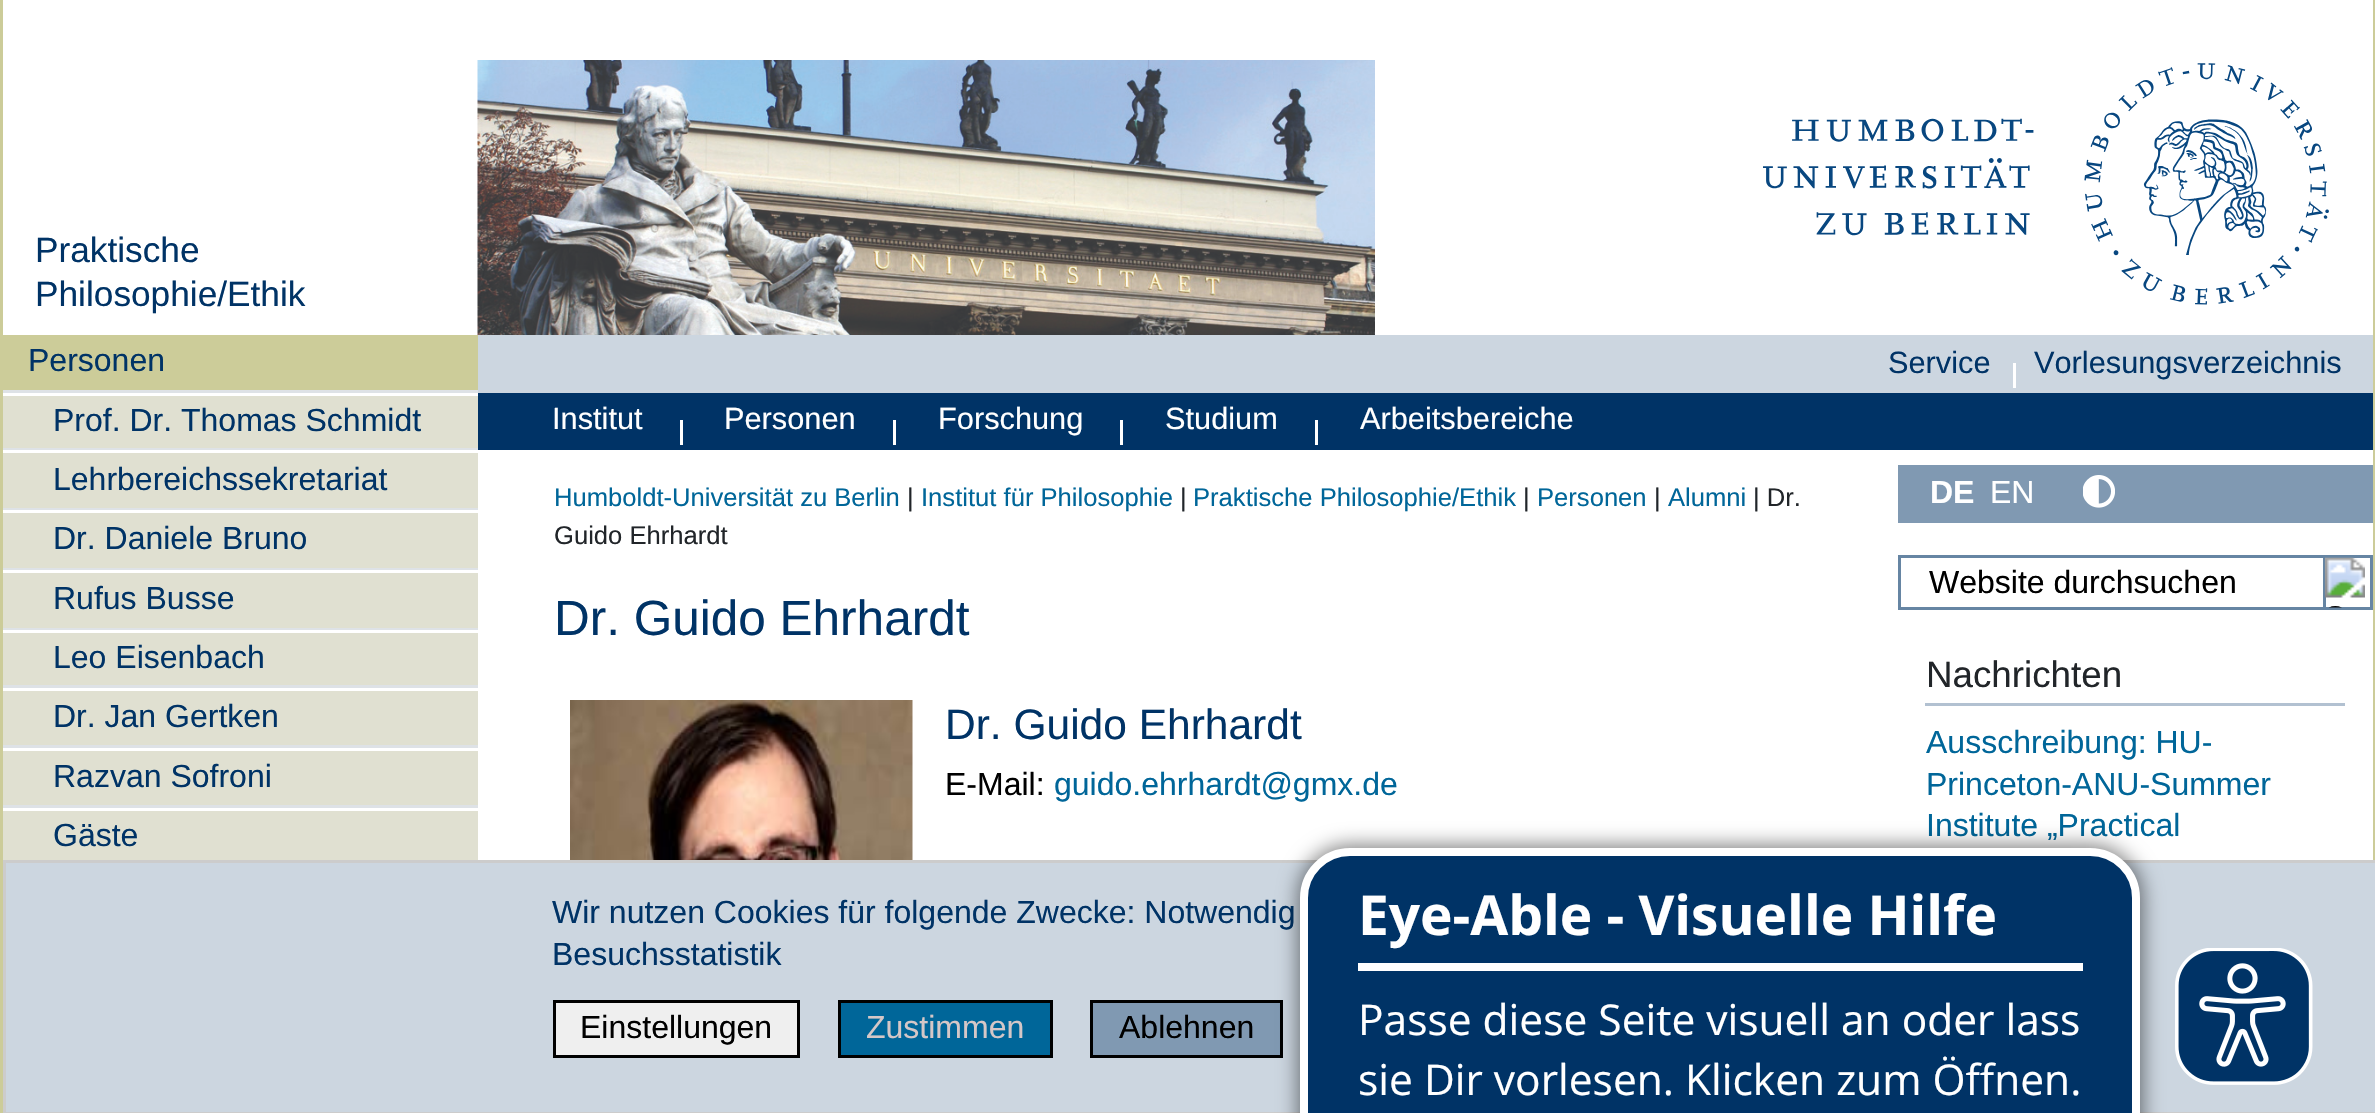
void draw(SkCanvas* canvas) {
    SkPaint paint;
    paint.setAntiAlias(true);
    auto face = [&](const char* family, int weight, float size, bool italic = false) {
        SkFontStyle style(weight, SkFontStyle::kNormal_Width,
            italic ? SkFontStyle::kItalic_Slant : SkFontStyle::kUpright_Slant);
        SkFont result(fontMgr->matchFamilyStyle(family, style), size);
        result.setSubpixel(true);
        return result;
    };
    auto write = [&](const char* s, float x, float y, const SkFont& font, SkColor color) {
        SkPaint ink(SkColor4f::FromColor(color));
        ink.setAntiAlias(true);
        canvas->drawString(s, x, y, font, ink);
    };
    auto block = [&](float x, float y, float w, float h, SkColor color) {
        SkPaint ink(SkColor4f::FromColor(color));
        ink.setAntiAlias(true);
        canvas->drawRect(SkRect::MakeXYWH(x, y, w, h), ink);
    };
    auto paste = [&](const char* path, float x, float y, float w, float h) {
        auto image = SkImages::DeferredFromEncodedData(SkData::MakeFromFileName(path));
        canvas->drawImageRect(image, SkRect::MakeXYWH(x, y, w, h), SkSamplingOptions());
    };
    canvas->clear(SK_ColorWHITE);
    paste("pic1.png", 477, 60, 898, 275);
    paste("pic2.png", 1763, 63, 566, 242);
    block(2373, 0, 2, 860, SkColorSetRGB(204, 204, 153));
    block(0, 0, 3, 1113, SkColorSetRGB(204, 204, 153));
    auto kFont1 = face("Liberation Sans", 400, 35.25f);
    write("Praktische", 35, 262, kFont1, SkColorSetRGB(0, 51, 102));
    write("Philosophie/Ethik", 35, 306, kFont1, SkColorSetRGB(0, 51, 102));
    block(3, 335, 475, 55, SkColorSetRGB(204, 204, 153));
    auto kFont2 = face("Liberation Sans", 400, 32);
    write("Personen", 28, 371, kFont2, SkColorSetRGB(0, 51, 102));
    block(3, 396, 475, 52, SkColorSetRGB(224, 224, 209));
    block(3, 390, 475, 3, SkColorSetRGB(222, 226, 230));
    write("Prof. Dr. Thomas Schmidt", 53, 431, kFont2, SkColorSetRGB(0, 51, 102));
    block(3, 453, 475, 55, SkColorSetRGB(224, 224, 209));
    block(3, 448, 475, 2, SkColorSetRGB(222, 226, 230));
    write("Lehrbereichssekretariat", 53, 490, kFont2, SkColorSetRGB(0, 51, 102));
    block(3, 513, 475, 55, SkColorSetRGB(224, 224, 209));
    block(3, 508, 475, 2, SkColorSetRGB(222, 226, 230));
    write("Dr. Daniele Bruno", 53, 549, kFont2, SkColorSetRGB(0, 51, 102));
    block(3, 573, 475, 55, SkColorSetRGB(224, 224, 209));
    block(3, 568, 475, 2, SkColorSetRGB(222, 226, 230));
    write("Rufus Busse", 53, 609, kFont2, SkColorSetRGB(0, 51, 102));
    block(3, 633, 475, 52, SkColorSetRGB(224, 224, 209));
    block(3, 628, 475, 2, SkColorSetRGB(222, 226, 230));
    write("Leo Eisenbach", 53, 668, kFont2, SkColorSetRGB(0, 51, 102));
    block(3, 691, 475, 54, SkColorSetRGB(224, 224, 209));
    block(3, 685, 475, 3, SkColorSetRGB(222, 226, 230));
    write("Dr. Jan Gertken", 53, 727, kFont2, SkColorSetRGB(0, 51, 102));
    block(3, 751, 475, 54, SkColorSetRGB(224, 224, 209));
    block(3, 745, 475, 3, SkColorSetRGB(222, 226, 230));
    write("Razvan Sofroni", 53, 787, kFont2, SkColorSetRGB(0, 51, 102));
    block(3, 811, 475, 49, SkColorSetRGB(224, 224, 209));
    block(3, 805, 475, 3, SkColorSetRGB(222, 226, 230));
    write("Gäste", 53, 846, kFont2, SkColorSetRGB(0, 51, 102));
    block(478, 335, 1895, 58, SkColorSetRGB(204, 214, 224));
    auto kFont3 = face("Liberation Sans", 400, 30.75f);
    write("Service", 1888, 373, kFont3, SkColorSetRGB(0, 51, 102));
    block(2013, 363, 3, 25, SK_ColorWHITE);
    write("Vorlesungsverzeichnis", 2034, 373, kFont3, SkColorSetRGB(0, 51, 102));
    block(478, 393, 1895, 57, SkColorSetRGB(0, 51, 102));
    write("Institut", 552, 429, kFont3, SK_ColorWHITE);
    block(680, 420, 3, 25, SK_ColorWHITE);
    write("Personen", 724, 429, kFont3, SK_ColorWHITE);
    block(893, 420, 3, 25, SK_ColorWHITE);
    write("Forschung", 938, 429, kFont3, SK_ColorWHITE);
    block(1120, 420, 3, 25, SK_ColorWHITE);
    write("Studium", 1165, 429, kFont3, SK_ColorWHITE);
    block(1315, 420, 3, 25, SK_ColorWHITE);
    write("Arbeitsbereiche", 1360, 429, kFont3, SK_ColorWHITE);
    auto kFont4 = face("Liberation Sans", 400, 25.6f);
    write("Humboldt-Universität zu Berlin", 554, 506, kFont4, SkColorSetRGB(0, 102, 153));
    write("|", 907, 506, kFont4, SkColorSetRGB(33, 37, 41));
    write("Institut für Philosophie", 921, 506, kFont4, SkColorSetRGB(0, 102, 153));
    write("|", 1180, 506, kFont4, SkColorSetRGB(33, 37, 41));
    write("Praktische Philosophie/Ethik", 1193, 506, kFont4, SkColorSetRGB(0, 102, 153));
    write("|", 1523, 506, kFont4, SkColorSetRGB(33, 37, 41));
    write("Personen", 1537, 506, kFont4, SkColorSetRGB(0, 102, 153));
    write("|", 1654, 506, kFont4, SkColorSetRGB(33, 37, 41));
    write("Alumni", 1668, 506, kFont4, SkColorSetRGB(0, 102, 153));
    write("| Dr.", 1753, 506, kFont4, SkColorSetRGB(33, 37, 41));
    write("Guido Ehrhardt", 554, 544, kFont4, SkColorSetRGB(33, 37, 41));
    auto kFont5 = face("Liberation Sans", 400, 49.5f);
    write("Dr. Guido Ehrhardt", 554, 635, kFont5, SkColorSetRGB(0, 51, 102));
    paste("pic3.png", 570, 700, 343, 160);
    auto kFont6 = face("Liberation Sans", 400, 42.5f);
    write("Dr. Guido Ehrhardt", 945, 739, kFont6, SkColorSetRGB(0, 51, 102));
    write("E-Mail:", 945, 795, kFont2, SK_ColorBLACK);
    write("guido.ehrhardt@gmx.de", 1054, 795, kFont2, SkColorSetRGB(0, 102, 153));
    block(1898, 465, 475, 58, SkColorSetRGB(128, 153, 178));
    auto kFont7 = face("Liberation Sans", 700, 32);
    write("DE", 1930, 503, kFont7, SK_ColorWHITE);
    write("EN", 1990, 503, kFont2, SK_ColorWHITE);
    paste("pic4.png", 2083, 475, 32, 33);
    paint.setStyle(SkPaint::kStroke_Style);
    paint.setStrokeWidth(3);
    paint.setColor(SkColorSetRGB(102, 133, 163));
    canvas->drawRect(SkRect::MakeXYWH(1899.5f, 556.5f, 472, 52), paint);
    write("Website durchsuchen", 1929, 593, kFont2, SK_ColorBLACK);
    canvas->drawRect(SkRect::MakeXYWH(2324.5f, 556.5f, 47, 52), paint);
    paste("pic5.png", 2325, 557, 40, 51);
    block(1925, 703, 420, 3, SkColorSetRGB(178, 193, 209));
    auto kFont8 = face("Liberation Sans", 400, 36.75f);
    write("Nachrichten", 1926, 687, kFont8, SkColorSetRGB(33, 37, 41));
    write("Ausschreibung: HU-", 1926, 753, kFont2, SkColorSetRGB(0, 102, 153));
    write("Princeton-ANU-Summer", 1926, 795, kFont2, SkColorSetRGB(0, 102, 153));
    write("Institute „Practical", 1926, 836, kFont2, SkColorSetRGB(0, 102, 153));
    paint.setStyle(SkPaint::kFill_Style);
    paint.setColor(SkColorSetRGB(204, 214, 224));
    canvas->drawRect(SkRect::MakeXYWH(4.5f, 861.5f, 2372, 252), paint);
    paint.setStyle(SkPaint::kStroke_Style);
    paint.setColor(SkColorSetRGB(204, 204, 204));
    canvas->drawRect(SkRect::MakeXYWH(4.5f, 861.5f, 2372, 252), paint);
    write("Wir nutzen Cookies für folgende Zwecke: Notwendig", 552, 923, kFont2, SkColorSetRGB(0, 51, 102));
    write("Besuchsstatistik", 552, 965, kFont2, SkColorSetRGB(0, 51, 102));
    paint.setStyle(SkPaint::kFill_Style);
    paint.setColor(SkColorSetRGB(239, 239, 239));
    canvas->drawRect(SkRect::MakeXYWH(554.5f, 1001.5f, 244, 55), paint);
    paint.setStyle(SkPaint::kStroke_Style);
    paint.setColor(SK_ColorBLACK);
    canvas->drawRect(SkRect::MakeXYWH(554.5f, 1001.5f, 244, 55), paint);
    write("Einstellungen", 580, 1038, kFont2, SK_ColorBLACK);
    paint.setStyle(SkPaint::kFill_Style);
    paint.setColor(SkColorSetRGB(0, 102, 153));
    canvas->drawRect(SkRect::MakeXYWH(839.5f, 1001.5f, 212, 55), paint);
    paint.setStyle(SkPaint::kStroke_Style);
    paint.setColor(SK_ColorBLACK);
    canvas->drawRect(SkRect::MakeXYWH(839.5f, 1001.5f, 212, 55), paint);
    write("Zustimmen", 866, 1038, kFont2, SkColorSetRGB(213, 199, 199));
    paint.setStyle(SkPaint::kFill_Style);
    paint.setColor(SkColorSetRGB(128, 153, 178));
    canvas->drawRect(SkRect::MakeXYWH(1091.5f, 1001.5f, 190, 55), paint);
    paint.setStyle(SkPaint::kStroke_Style);
    paint.setColor(SK_ColorBLACK);
    canvas->drawRect(SkRect::MakeXYWH(1091.5f, 1001.5f, 190, 55), paint);
    write("Ablehnen", 1119, 1038, kFont2, SK_ColorBLACK);
    paint.setStyle(SkPaint::kFill_Style);
    paint.setColor(SkColorSetARGB(128, 0, 0, 0));
    paint.setMaskFilter(SkMaskFilter::MakeBlur(kNormal_SkBlurStyle, 10));
    canvas->drawRoundRect(SkRect::MakeXYWH(1298, 845, 845, 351), 53, 53, paint);
    paint.setMaskFilter(nullptr);
    paint.setColor(SkColorSetRGB(0, 51, 102));
    canvas->drawRoundRect(SkRect::MakeXYWH(1304, 852, 832, 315), 46, 46, paint);
    paint.setStyle(SkPaint::kStroke_Style);
    paint.setStrokeWidth(8);
    paint.setColor(SK_ColorWHITE);
    canvas->drawRoundRect(SkRect::MakeXYWH(1304, 852, 832, 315), 46, 46, paint);
    block(1358, 963, 725, 8, SK_ColorWHITE);
    auto kFont9 = face("Open Sans", 700, 55);
    write("Eye-Able - Visuelle Hilfe", 1358, 935, kFont9, SK_ColorWHITE);
    auto kFont10 = face("Open Sans", 400, 42.5f);
    write("Passe diese Seite visuell an oder lass", 1358, 1035, kFont10, SK_ColorWHITE);
    write("sie Dir vorlesen. Klicken zum Öffnen.", 1358, 1095, kFont10, SK_ColorWHITE);
    paste("pic6.png", 2175, 948, 138, 137);
}
